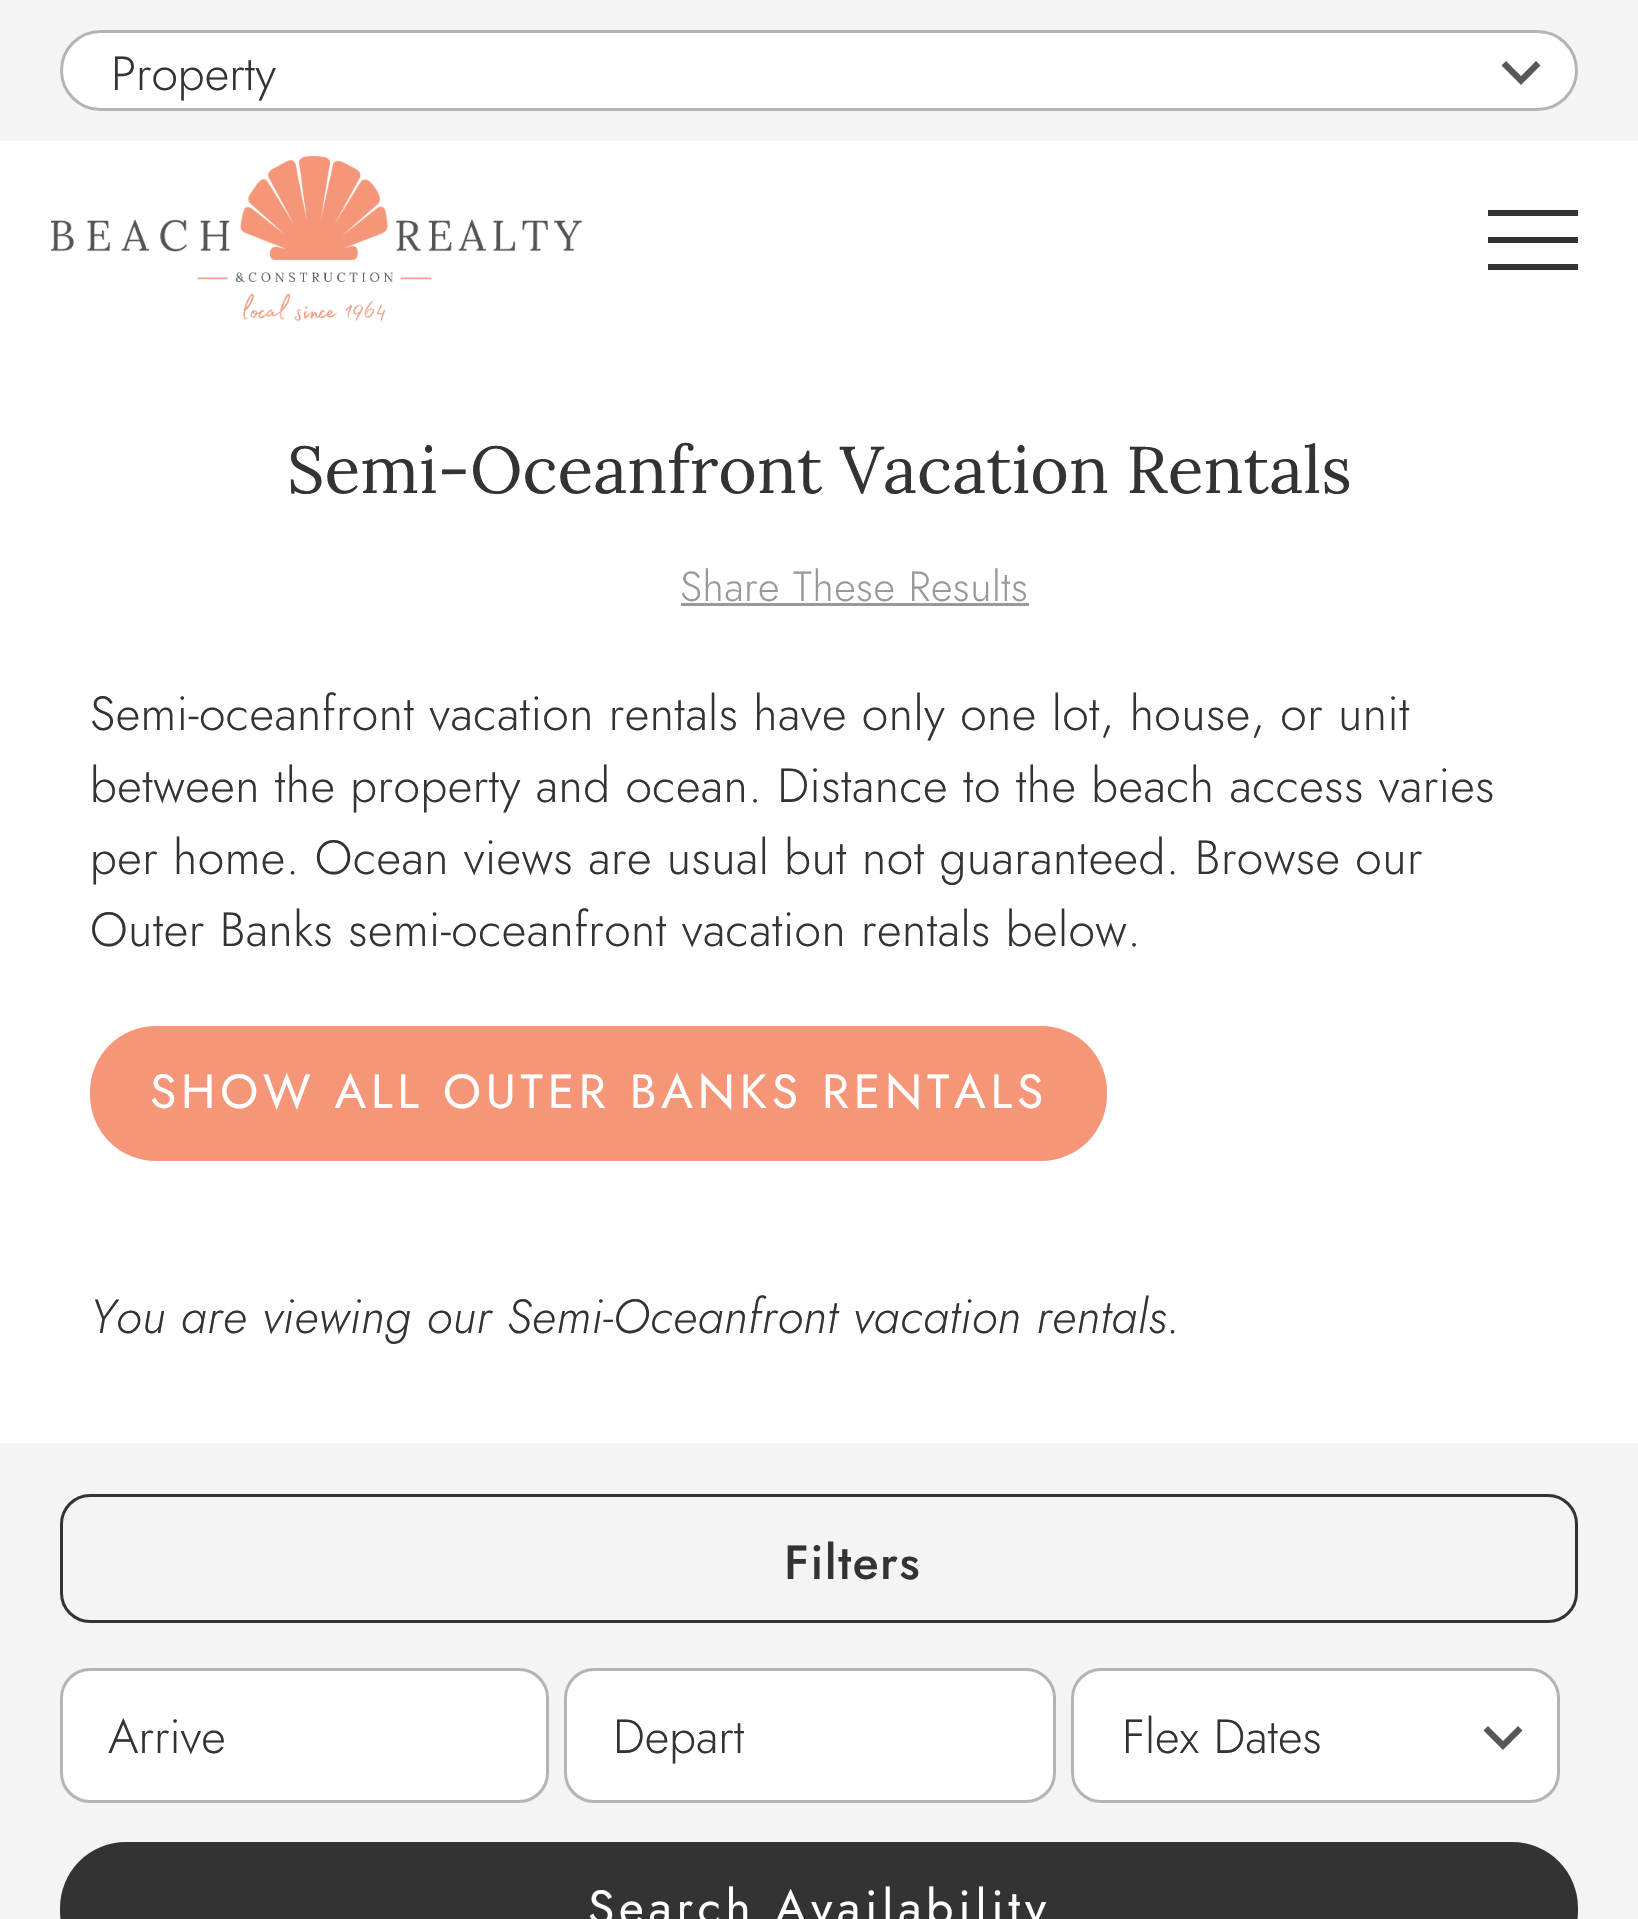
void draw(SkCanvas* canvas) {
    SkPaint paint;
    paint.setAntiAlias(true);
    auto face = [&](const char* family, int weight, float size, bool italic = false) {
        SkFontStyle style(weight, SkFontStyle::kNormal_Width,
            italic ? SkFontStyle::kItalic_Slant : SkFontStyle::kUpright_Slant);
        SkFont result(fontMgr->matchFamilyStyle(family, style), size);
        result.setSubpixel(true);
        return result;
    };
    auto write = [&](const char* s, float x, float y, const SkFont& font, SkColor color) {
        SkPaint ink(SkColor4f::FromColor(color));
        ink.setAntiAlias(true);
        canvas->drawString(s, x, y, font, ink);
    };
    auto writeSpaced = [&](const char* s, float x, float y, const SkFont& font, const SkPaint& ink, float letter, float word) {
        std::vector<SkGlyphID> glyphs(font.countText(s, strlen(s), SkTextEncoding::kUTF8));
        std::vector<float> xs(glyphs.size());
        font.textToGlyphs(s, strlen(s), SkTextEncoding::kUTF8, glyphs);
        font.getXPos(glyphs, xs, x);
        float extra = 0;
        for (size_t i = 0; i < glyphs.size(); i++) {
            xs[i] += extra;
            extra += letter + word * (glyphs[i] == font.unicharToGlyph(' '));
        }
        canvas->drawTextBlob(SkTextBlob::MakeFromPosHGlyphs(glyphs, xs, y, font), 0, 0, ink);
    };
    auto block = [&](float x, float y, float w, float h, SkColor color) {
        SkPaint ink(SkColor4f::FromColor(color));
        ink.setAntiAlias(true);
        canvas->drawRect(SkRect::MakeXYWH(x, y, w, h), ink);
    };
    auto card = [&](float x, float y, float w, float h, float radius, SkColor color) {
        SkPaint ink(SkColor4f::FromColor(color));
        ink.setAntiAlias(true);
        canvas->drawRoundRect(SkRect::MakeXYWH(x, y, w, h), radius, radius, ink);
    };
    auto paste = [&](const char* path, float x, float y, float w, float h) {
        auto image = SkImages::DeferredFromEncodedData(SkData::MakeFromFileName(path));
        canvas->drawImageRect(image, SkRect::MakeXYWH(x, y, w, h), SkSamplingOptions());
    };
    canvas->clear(SK_ColorWHITE);
    block(0, 0, 1638, 141, SkColorSetRGB(244, 244, 244));
    card(60, 30, 1518, 81, 40.5f, SK_ColorWHITE);
    paint.setColor(SkColorSetRGB(88, 88, 90));
    canvas->drawPath(SkPathBuilder().moveTo(1536, 61).lineTo(1521, 76).lineTo(1506, 61).lineTo(1501.5f, 65.5f).lineTo(1521, 85).lineTo(1540.5f, 65.5f).close().detach(), paint);
    paint.setStyle(SkPaint::kStroke_Style);
    paint.setStrokeWidth(3);
    paint.setColor(SkColorSetRGB(180, 180, 180));
    canvas->drawRoundRect(SkRect::MakeXYWH(61.5f, 31.5f, 1515, 78), 39, 39, paint);
    auto kFont1 = face("Jost", 300, 48);
    write("Property", 111, 90, kFont1, SkColorSetRGB(51, 51, 51));
    paste("pic1.png", 51, 156, 531, 165);
    block(1488, 237, 90, 6, SkColorSetRGB(51, 51, 51));
    block(1488, 210, 90, 6, SkColorSetRGB(51, 51, 51));
    block(1488, 264, 90, 6, SkColorSetRGB(51, 51, 51));
    auto kFont2 = face("Lora", 400, 66);
    write("Semi-Oceanfront Vacation Rentals", 287, 493, kFont2, SkColorSetRGB(51, 51, 51));
    block(681, 603, 348, 3, SkColorSetRGB(153, 153, 153));
    auto kFont3 = face("Jost", 300, 42);
    paint.setStyle(SkPaint::kFill_Style);
    paint.setColor(SkColorSetRGB(153, 153, 153));
    writeSpaced("Share These Results", 680, 601, kFont3, paint, 0.48f, 0);
    paint.setColor(SkColorSetRGB(51, 51, 51));
    writeSpaced("Semi-oceanfront vacation rentals have only one lot, house, or unit", 90, 730, kFont1, paint, 0.48f, 0);
    writeSpaced("between the property and ocean. Distance to the beach access varies", 90, 802, kFont1, paint, 0.48f, 0);
    writeSpaced("per home. Ocean views are usual but not guaranteed. Browse our", 90, 874, kFont1, paint, 0.48f, 0);
    writeSpaced("Outer Banks semi-oceanfront vacation rentals below.", 90, 946, kFont1, paint, 0.48f, 0);
    card(90, 1026, 1017, 135, 66, SkColorSetRGB(246, 150, 121));
    auto kFont4 = face("Jost", 400, 48);
    paint.setColor(SK_ColorWHITE);
    writeSpaced("SHOW ALL OUTER BANKS RENTALS", 150, 1108, kFont4, paint, 4.8f, 0);
    auto kFont5 = face("Jost", 300, 48, true);
    paint.setColor(SkColorSetRGB(51, 51, 51));
    writeSpaced("You are viewing our Semi-Oceanfront vacation rentals.", 90, 1333, kFont5, paint, 0.48f, 0);
    block(0, 1443, 1638, 476, SkColorSetRGB(244, 244, 244));
    paint.setStyle(SkPaint::kStroke_Style);
    canvas->drawRoundRect(SkRect::MakeXYWH(61.5f, 1495.5f, 1515, 126), 28.5f, 28.5f, paint);
    auto kFont6 = face("Jost", 500, 48);
    paint.setStyle(SkPaint::kFill_Style);
    writeSpaced("Filters", 784, 1579, kFont6, paint, 1.5f, 0);
    paint.setColor(SK_ColorWHITE);
    canvas->drawRoundRect(SkRect::MakeXYWH(61.5f, 1669.5f, 486, 132), 28.5f, 28.5f, paint);
    paint.setStyle(SkPaint::kStroke_Style);
    paint.setColor(SkColorSetRGB(180, 180, 180));
    canvas->drawRoundRect(SkRect::MakeXYWH(61.5f, 1669.5f, 486, 132), 28.5f, 28.5f, paint);
    write("Arrive", 108, 1753, kFont1, SkColorSetRGB(51, 51, 51));
    paint.setStyle(SkPaint::kFill_Style);
    paint.setColor(SK_ColorWHITE);
    canvas->drawRoundRect(SkRect::MakeXYWH(565.5f, 1669.5f, 489, 132), 28.5f, 28.5f, paint);
    paint.setStyle(SkPaint::kStroke_Style);
    paint.setColor(SkColorSetRGB(180, 180, 180));
    canvas->drawRoundRect(SkRect::MakeXYWH(565.5f, 1669.5f, 489, 132), 28.5f, 28.5f, paint);
    write("Depart", 613, 1753, kFont1, SkColorSetRGB(51, 51, 51));
    card(1071, 1668, 489, 135, 30, SK_ColorWHITE);
    paint.setStyle(SkPaint::kFill_Style);
    paint.setColor(SkColorSetRGB(88, 88, 90));
    canvas->drawPath(SkPathBuilder().moveTo(1518, 1726).lineTo(1503, 1741).lineTo(1488, 1726).lineTo(1483.5f, 1730.5f).lineTo(1503, 1750).lineTo(1522.5f, 1730.5f).close().detach(), paint);
    paint.setStyle(SkPaint::kStroke_Style);
    paint.setColor(SkColorSetRGB(180, 180, 180));
    canvas->drawRoundRect(SkRect::MakeXYWH(1072.5f, 1669.5f, 486, 132), 28.5f, 28.5f, paint);
    write("Flex Dates", 1122, 1753, kFont1, SkColorSetRGB(51, 51, 51));
    card(60, 1842, 1518, 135, 66, SkColorSetRGB(51, 51, 51));
    paint.setStyle(SkPaint::kFill_Style);
    paint.setColor(SK_ColorWHITE);
    writeSpaced("Search Availability", 588, 1924, kFont4, paint, 4.8f, 0);
}
